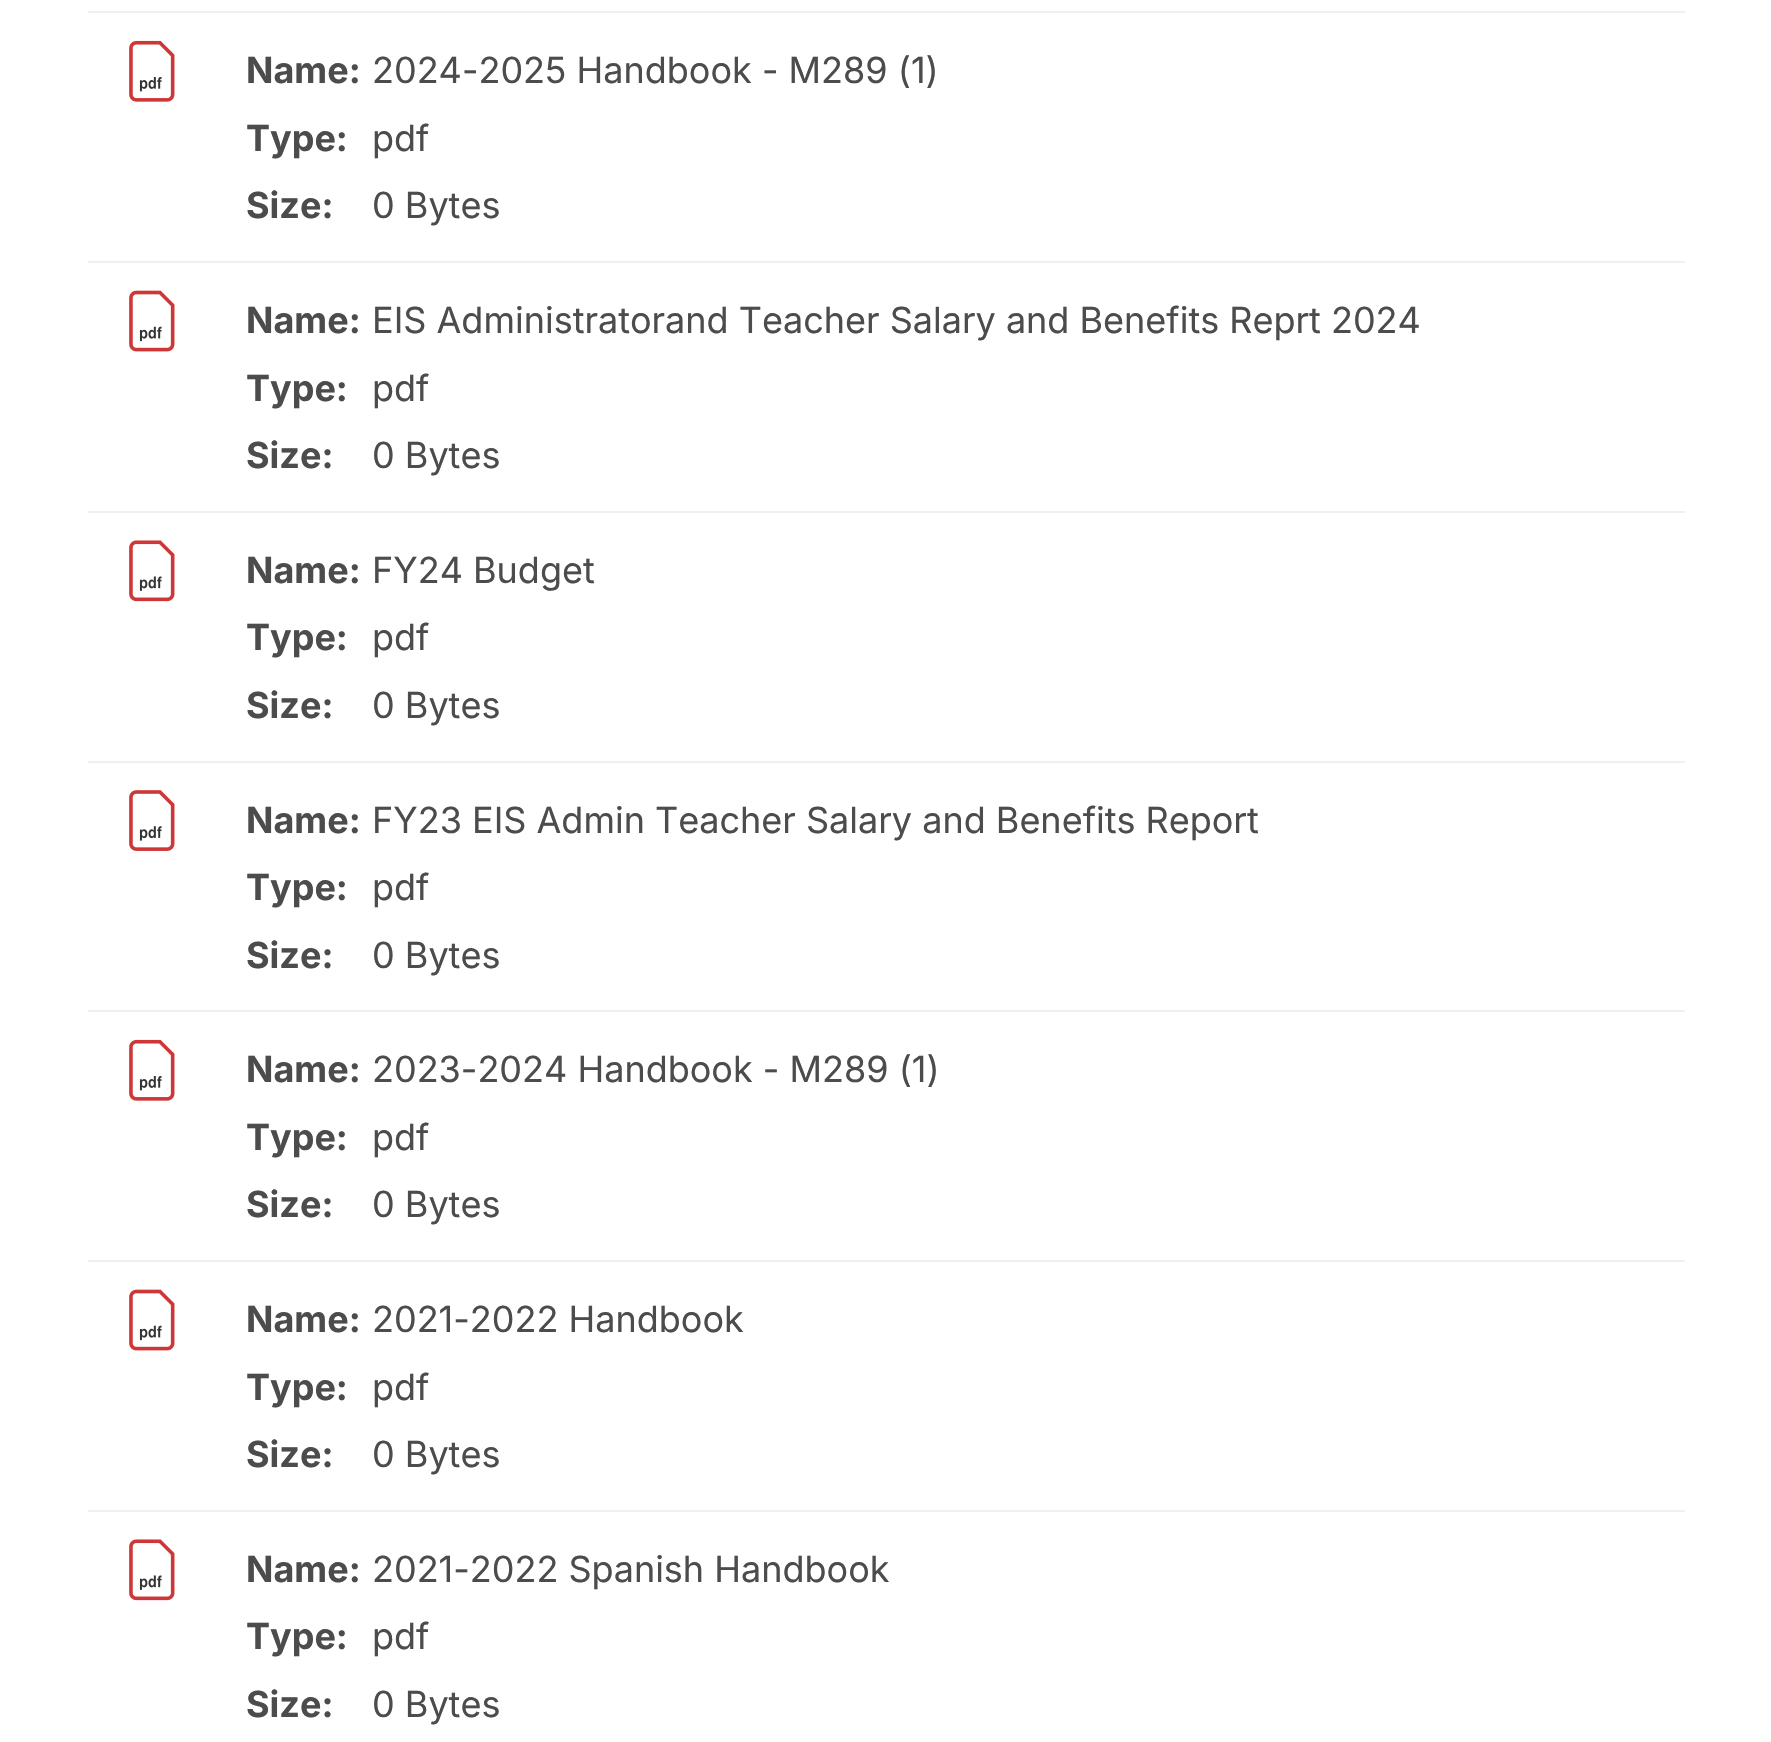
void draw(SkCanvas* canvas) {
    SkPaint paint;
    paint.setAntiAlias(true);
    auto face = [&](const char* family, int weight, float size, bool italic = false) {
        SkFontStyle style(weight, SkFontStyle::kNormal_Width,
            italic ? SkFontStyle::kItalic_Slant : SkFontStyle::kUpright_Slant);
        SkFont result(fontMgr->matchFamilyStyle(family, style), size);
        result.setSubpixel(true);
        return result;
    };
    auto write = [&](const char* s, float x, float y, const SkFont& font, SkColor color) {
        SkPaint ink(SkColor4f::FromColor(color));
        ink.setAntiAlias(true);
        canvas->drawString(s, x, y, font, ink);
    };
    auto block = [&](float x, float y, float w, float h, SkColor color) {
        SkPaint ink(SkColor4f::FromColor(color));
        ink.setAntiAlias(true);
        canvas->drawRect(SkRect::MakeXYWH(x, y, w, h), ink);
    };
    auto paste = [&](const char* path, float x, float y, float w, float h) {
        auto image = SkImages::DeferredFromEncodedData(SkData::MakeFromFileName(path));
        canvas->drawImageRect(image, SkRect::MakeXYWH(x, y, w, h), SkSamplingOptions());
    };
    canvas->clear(SK_ColorWHITE);
    block(88, 11, 1597, 2, SkColorSetRGB(240, 240, 240));
    block(88, 261, 1597, 2, SkColorSetRGB(240, 240, 240));
    paste("pic1.png", 129, 40, 46, 62);
    auto kFont1 = face("Inter", 700, 36);
    write("Name:", 246, 83, kFont1, SkColorSetRGB(76, 76, 76));
    auto kFont2 = face("Inter", 400, 36);
    write("2024-2025 Handbook - M289 (1)", 372, 83, kFont2, SkColorSetRGB(76, 76, 76));
    write("Type:", 246, 151, kFont1, SkColorSetRGB(76, 76, 76));
    write("pdf", 372, 151, kFont2, SkColorSetRGB(76, 76, 76));
    write("Size:", 246, 218, kFont1, SkColorSetRGB(76, 76, 76));
    write("0 Bytes", 372, 218, kFont2, SkColorSetRGB(76, 76, 76));
    block(88, 511, 1597, 2, SkColorSetRGB(240, 240, 240));
    paste("pic2.png", 129, 290, 46, 62);
    write("Name:", 246, 333, kFont1, SkColorSetRGB(76, 76, 76));
    write("EIS Administratorand Teacher Salary and Benefits Reprt 2024", 372, 333, kFont2, SkColorSetRGB(76, 76, 76));
    write("Type:", 246, 401, kFont1, SkColorSetRGB(76, 76, 76));
    write("pdf", 372, 401, kFont2, SkColorSetRGB(76, 76, 76));
    write("Size:", 246, 468, kFont1, SkColorSetRGB(76, 76, 76));
    write("0 Bytes", 372, 468, kFont2, SkColorSetRGB(76, 76, 76));
    block(88, 761, 1597, 2, SkColorSetRGB(240, 240, 240));
    paste("pic3.png", 129, 540, 46, 62);
    write("Name:", 246, 583, kFont1, SkColorSetRGB(76, 76, 76));
    write("FY24 Budget", 372, 583, kFont2, SkColorSetRGB(76, 76, 76));
    write("Type:", 246, 650, kFont1, SkColorSetRGB(76, 76, 76));
    write("pdf", 372, 650, kFont2, SkColorSetRGB(76, 76, 76));
    write("Size:", 246, 718, kFont1, SkColorSetRGB(76, 76, 76));
    write("0 Bytes", 372, 718, kFont2, SkColorSetRGB(76, 76, 76));
    block(88, 1010, 1597, 2, SkColorSetRGB(240, 240, 240));
    paste("pic4.png", 129, 790, 46, 61);
    write("Name:", 246, 833, kFont1, SkColorSetRGB(76, 76, 76));
    write("FY23 EIS Admin Teacher Salary and Benefits Report", 372, 833, kFont2, SkColorSetRGB(76, 76, 76));
    write("Type:", 246, 900, kFont1, SkColorSetRGB(76, 76, 76));
    write("pdf", 372, 900, kFont2, SkColorSetRGB(76, 76, 76));
    write("Size:", 246, 968, kFont1, SkColorSetRGB(76, 76, 76));
    write("0 Bytes", 372, 968, kFont2, SkColorSetRGB(76, 76, 76));
    block(88, 1260, 1597, 2, SkColorSetRGB(240, 240, 240));
    paste("pic1.png", 129, 1039, 46, 62);
    write("Name:", 246, 1082, kFont1, SkColorSetRGB(76, 76, 76));
    write("2023-2024 Handbook - M289 (1)", 372, 1082, kFont2, SkColorSetRGB(76, 76, 76));
    write("Type:", 246, 1150, kFont1, SkColorSetRGB(76, 76, 76));
    write("pdf", 372, 1150, kFont2, SkColorSetRGB(76, 76, 76));
    write("Size:", 246, 1217, kFont1, SkColorSetRGB(76, 76, 76));
    write("0 Bytes", 372, 1217, kFont2, SkColorSetRGB(76, 76, 76));
    block(88, 1510, 1597, 2, SkColorSetRGB(240, 240, 240));
    paste("pic2.png", 129, 1289, 46, 62);
    write("Name:", 246, 1332, kFont1, SkColorSetRGB(76, 76, 76));
    write("2021-2022 Handbook", 372, 1332, kFont2, SkColorSetRGB(76, 76, 76));
    write("Type:", 246, 1400, kFont1, SkColorSetRGB(76, 76, 76));
    write("pdf", 372, 1400, kFont2, SkColorSetRGB(76, 76, 76));
    write("Size:", 246, 1467, kFont1, SkColorSetRGB(76, 76, 76));
    write("0 Bytes", 372, 1467, kFont2, SkColorSetRGB(76, 76, 76));
    paste("pic3.png", 129, 1539, 46, 62);
    write("Name:", 246, 1582, kFont1, SkColorSetRGB(76, 76, 76));
    write("2021-2022 Spanish Handbook", 372, 1582, kFont2, SkColorSetRGB(76, 76, 76));
    write("Type:", 246, 1649, kFont1, SkColorSetRGB(76, 76, 76));
    write("pdf", 372, 1649, kFont2, SkColorSetRGB(76, 76, 76));
    write("Size:", 246, 1717, kFont1, SkColorSetRGB(76, 76, 76));
    write("0 Bytes", 372, 1717, kFont2, SkColorSetRGB(76, 76, 76));
}
